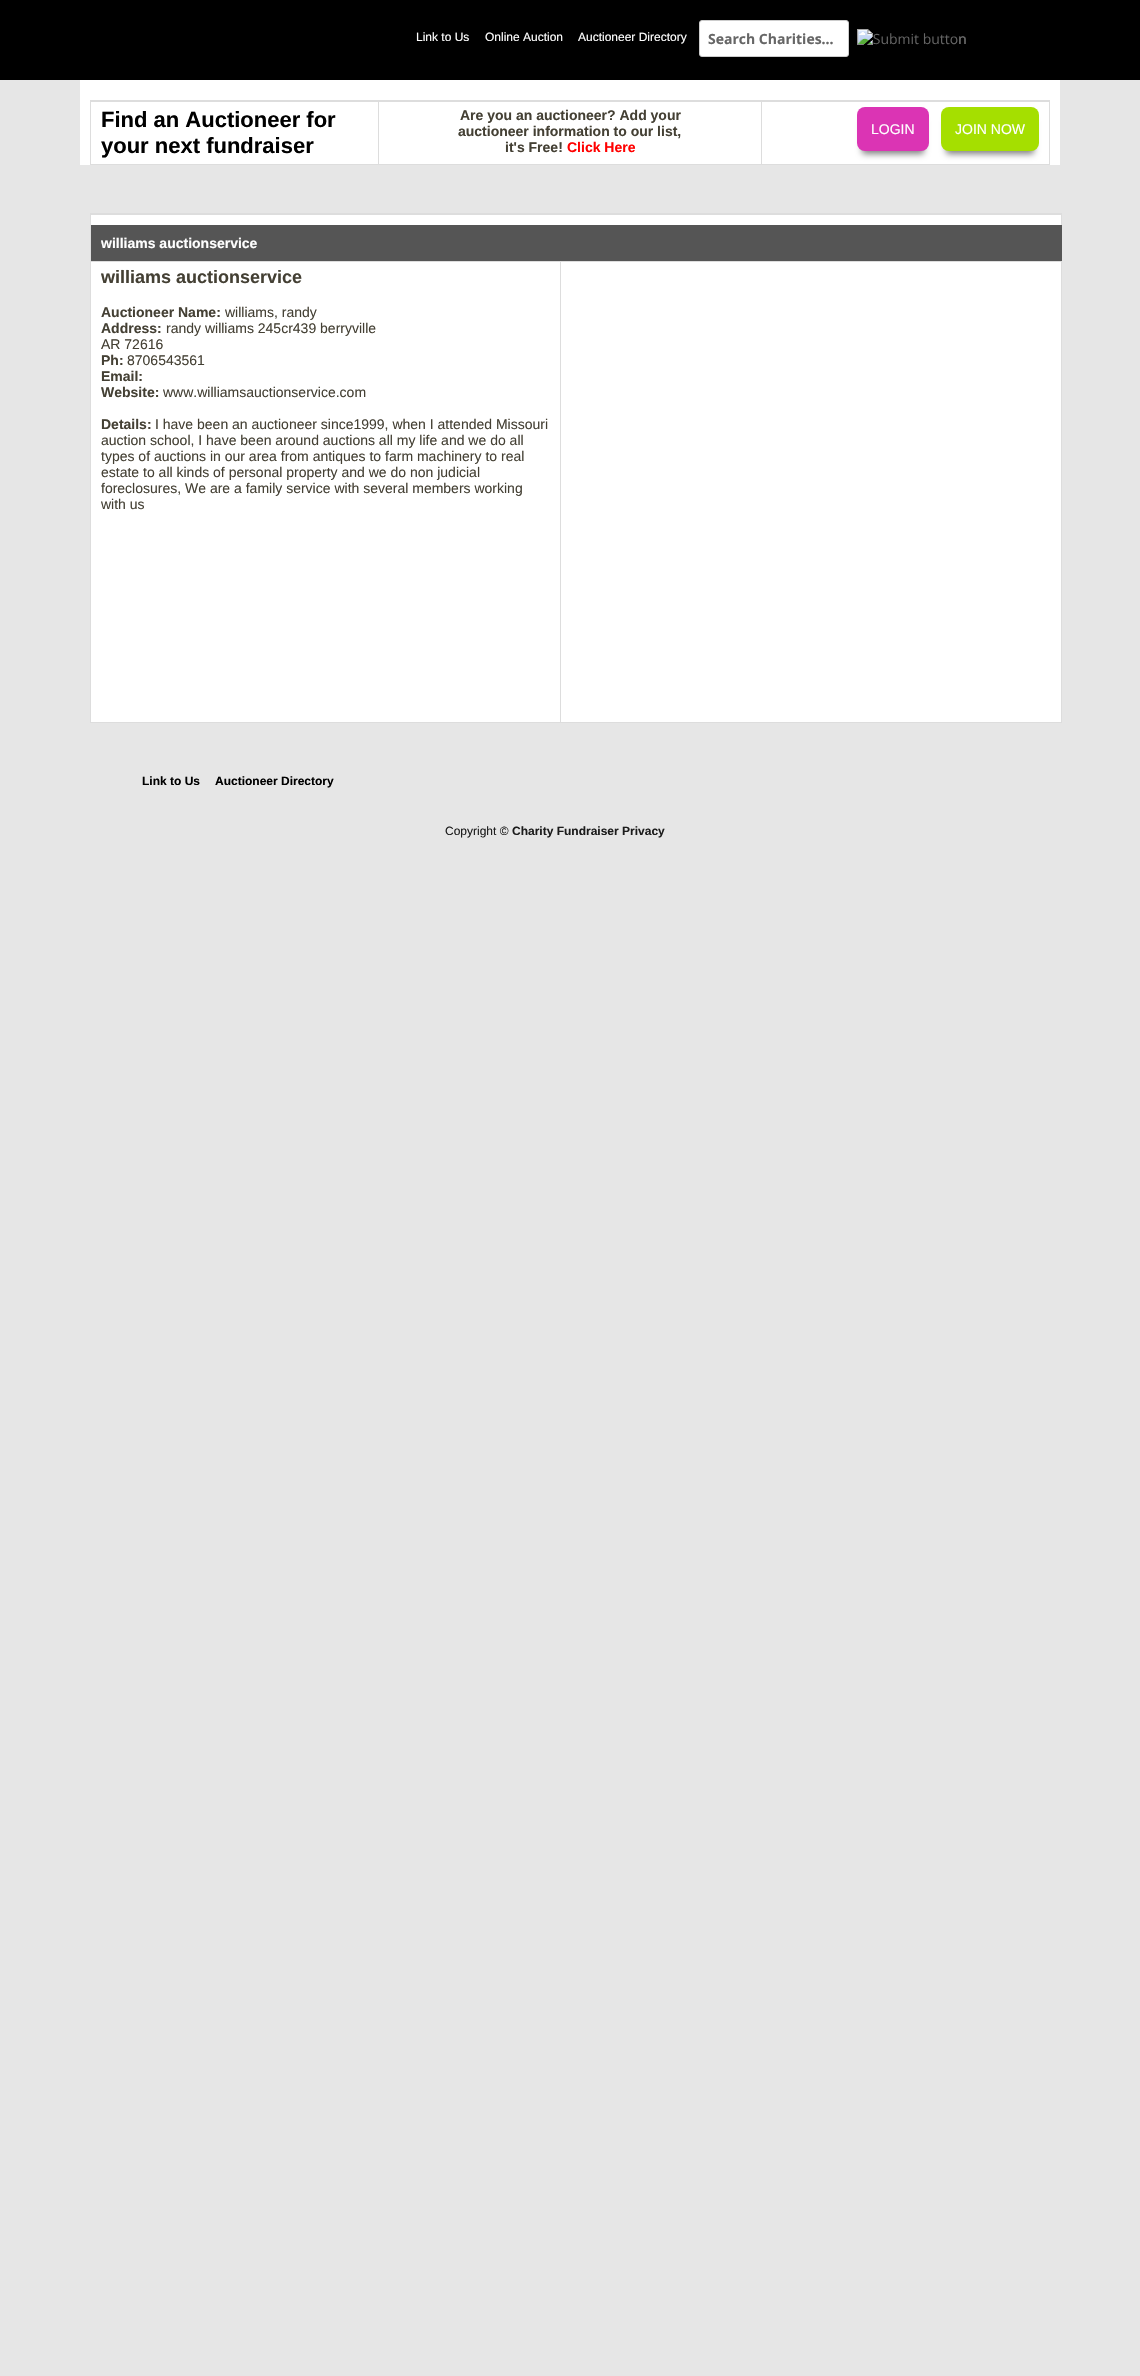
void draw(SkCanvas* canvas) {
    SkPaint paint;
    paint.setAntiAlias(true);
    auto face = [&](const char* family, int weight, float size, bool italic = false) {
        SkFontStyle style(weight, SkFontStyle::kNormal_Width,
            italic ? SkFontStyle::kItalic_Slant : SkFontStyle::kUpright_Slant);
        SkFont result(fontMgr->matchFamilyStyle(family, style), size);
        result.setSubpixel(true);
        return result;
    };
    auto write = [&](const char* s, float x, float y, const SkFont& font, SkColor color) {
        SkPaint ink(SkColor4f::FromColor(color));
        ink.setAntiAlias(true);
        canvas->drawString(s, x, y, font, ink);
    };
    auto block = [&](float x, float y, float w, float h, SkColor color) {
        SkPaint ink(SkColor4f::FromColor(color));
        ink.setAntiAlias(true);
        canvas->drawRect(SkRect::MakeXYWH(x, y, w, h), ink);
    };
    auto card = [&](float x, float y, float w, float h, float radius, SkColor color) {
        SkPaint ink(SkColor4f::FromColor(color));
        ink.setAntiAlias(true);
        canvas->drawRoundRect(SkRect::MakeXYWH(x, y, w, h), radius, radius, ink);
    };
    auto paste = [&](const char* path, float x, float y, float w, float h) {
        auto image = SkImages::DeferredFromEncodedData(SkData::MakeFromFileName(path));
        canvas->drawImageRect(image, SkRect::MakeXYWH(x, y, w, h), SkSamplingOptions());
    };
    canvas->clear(SkColorSetRGB(230, 230, 230));
    block(0, 0, 1140, 80, SK_ColorBLACK);
    auto kFont1 = face("Liberation Sans", 400, 12);
    write("Link to Us", 416, 41, kFont1, SK_ColorWHITE);
    write("Online Auction", 485, 41, kFont1, SK_ColorWHITE);
    write("Auctioneer Directory", 578, 41, kFont1, SK_ColorWHITE);
    paint.setColor(SK_ColorWHITE);
    canvas->drawRoundRect(SkRect::MakeXYWH(699.5f, 20.5f, 149, 36), 2.5f, 2.5f, paint);
    paint.setStyle(SkPaint::kStroke_Style);
    paint.setStrokeWidth(1);
    paint.setColor(SkColorSetRGB(204, 204, 204));
    canvas->drawRoundRect(SkRect::MakeXYWH(699.5f, 20.5f, 149, 36), 2.5f, 2.5f, paint);
    auto kFont2 = face("Open Sans", 700, 14);
    write("Search Charities...", 708, 44, kFont2, SkColorSetRGB(102, 102, 102));
    paste("pic1.png", 857, 29, 109, 16);
    auto kFont3 = face("Open Sans", 400, 14);
    write("n", 958, 44, kFont3, SkColorSetRGB(102, 102, 102));
    block(80, 80, 980, 85, SK_ColorWHITE);
    block(90, 100, 960, 1, SkColorSetRGB(221, 221, 221));
    block(90, 164, 960, 1, SkColorSetRGB(221, 221, 221));
    block(90, 100, 1, 65, SkColorSetRGB(221, 221, 221));
    block(91, 101, 959, 1, SkColorSetRGB(221, 221, 221));
    block(378, 101, 1, 63, SkColorSetRGB(221, 221, 221));
    auto kFont4 = face("Liberation Sans", 700, 22);
    write("Find an Auctioneer for", 101, 127, kFont4, SK_ColorBLACK);
    write("your next fundraiser", 101, 153, kFont4, SK_ColorBLACK);
    block(761, 101, 1, 63, SkColorSetRGB(221, 221, 221));
    auto kFont5 = face("Liberation Sans", 700, 14);
    write("Are you an auctioneer? Add your", 460, 120, kFont5, SkColorSetRGB(68, 64, 52));
    write("auctioneer information to our list,", 458, 136, kFont5, SkColorSetRGB(68, 64, 52));
    write("it's Free!", 505, 152, kFont5, SkColorSetRGB(68, 64, 52));
    write("Click Here", 567, 152, kFont5, SkColorSetRGB(255, 0, 0));
    block(1049, 101, 1, 63, SkColorSetRGB(221, 221, 221));
    paint.setStyle(SkPaint::kFill_Style);
    paint.setColor(SkColorSetRGB(128, 128, 128));
    paint.setMaskFilter(SkMaskFilter::MakeBlur(kNormal_SkBlurStyle, 3));
    canvas->drawRoundRect(SkRect::MakeXYWH(862, 120, 62, 34), 3, 3, paint);
    paint.setMaskFilter(nullptr);
    card(857, 107, 72, 44, 8, SkColorSetRGB(219, 52, 180));
    auto kFont6 = face("Liberation Sans", 400, 14);
    write("LOGIN", 871, 134, kFont6, SK_ColorWHITE);
    paint.setMaskFilter(SkMaskFilter::MakeBlur(kNormal_SkBlurStyle, 3));
    canvas->drawRoundRect(SkRect::MakeXYWH(946, 120, 88, 34), 3, 3, paint);
    paint.setMaskFilter(nullptr);
    card(941, 107, 98, 44, 8, SkColorSetRGB(165, 223, 0));
    write("JOIN NOW", 955, 134, kFont6, SK_ColorWHITE);
    block(91, 215, 970, 507, SK_ColorWHITE);
    block(90, 213, 972, 1, SkColorSetRGB(221, 221, 221));
    block(90, 722, 972, 1, SkColorSetRGB(221, 221, 221));
    block(90, 213, 1, 510, SkColorSetRGB(221, 221, 221));
    block(91, 214, 971, 1, SkColorSetRGB(221, 221, 221));
    block(1061, 214, 1, 11, SkColorSetRGB(221, 221, 221));
    block(91, 225, 971, 36, SkColorSetRGB(85, 85, 85));
    write("williams auctionservice", 101, 248, kFont5, SK_ColorWHITE);
    block(91, 261, 971, 1, SkColorSetRGB(221, 221, 221));
    block(560, 261, 1, 461, SkColorSetRGB(221, 221, 221));
    auto kFont7 = face("Liberation Sans", 700, 18);
    write("williams auctionservice", 101, 283, kFont7, SkColorSetRGB(68, 64, 52));
    write("Auctioneer Name:", 101, 317, kFont5, SkColorSetRGB(68, 64, 52));
    write("williams, randy", 225, 317, kFont6, SkColorSetRGB(68, 64, 52));
    write("Address:", 101, 333, kFont5, SkColorSetRGB(68, 64, 52));
    write("randy williams 245cr439 berryville", 166, 333, kFont6, SkColorSetRGB(68, 64, 52));
    write("AR 72616", 101, 349, kFont6, SkColorSetRGB(68, 64, 52));
    write("Ph:", 101, 365, kFont5, SkColorSetRGB(68, 64, 52));
    write("8706543561", 127, 365, kFont6, SkColorSetRGB(68, 64, 52));
    write("Email:", 101, 381, kFont5, SkColorSetRGB(68, 64, 52));
    write("Website:", 101, 397, kFont5, SkColorSetRGB(68, 64, 52));
    write("www.williamsauctionservice.com", 163, 397, kFont6, SkColorSetRGB(68, 64, 52));
    write("Details:", 101, 429, kFont5, SkColorSetRGB(68, 64, 52));
    write("I have been an auctioneer since1999, when I attended Missouri", 155, 429, kFont6, SkColorSetRGB(68, 64, 52));
    write("auction school, I have been around auctions all my life and we do all", 101, 445, kFont6, SkColorSetRGB(68, 64, 52));
    write("types of auctions in our area from antiques to farm machinery to real", 101, 461, kFont6, SkColorSetRGB(68, 64, 52));
    write("estate to all kinds of personal property and we do non judicial", 101, 477, kFont6, SkColorSetRGB(68, 64, 52));
    write("foreclosures, We are a family service with several members working", 101, 493, kFont6, SkColorSetRGB(68, 64, 52));
    write("with us", 101, 509, kFont6, SkColorSetRGB(68, 64, 52));
    block(1061, 261, 1, 461, SkColorSetRGB(221, 221, 221));
    auto kFont8 = face("Liberation Sans", 700, 12);
    write("Link to Us", 142, 785, kFont8, SK_ColorBLACK);
    write("Auctioneer Directory", 215, 785, kFont8, SK_ColorBLACK);
    write("Copyright ©", 445, 835, kFont1, SkColorSetRGB(28, 28, 28));
    write("Charity Fundraiser Privacy", 512, 835, kFont8, SkColorSetRGB(28, 28, 28));
}
